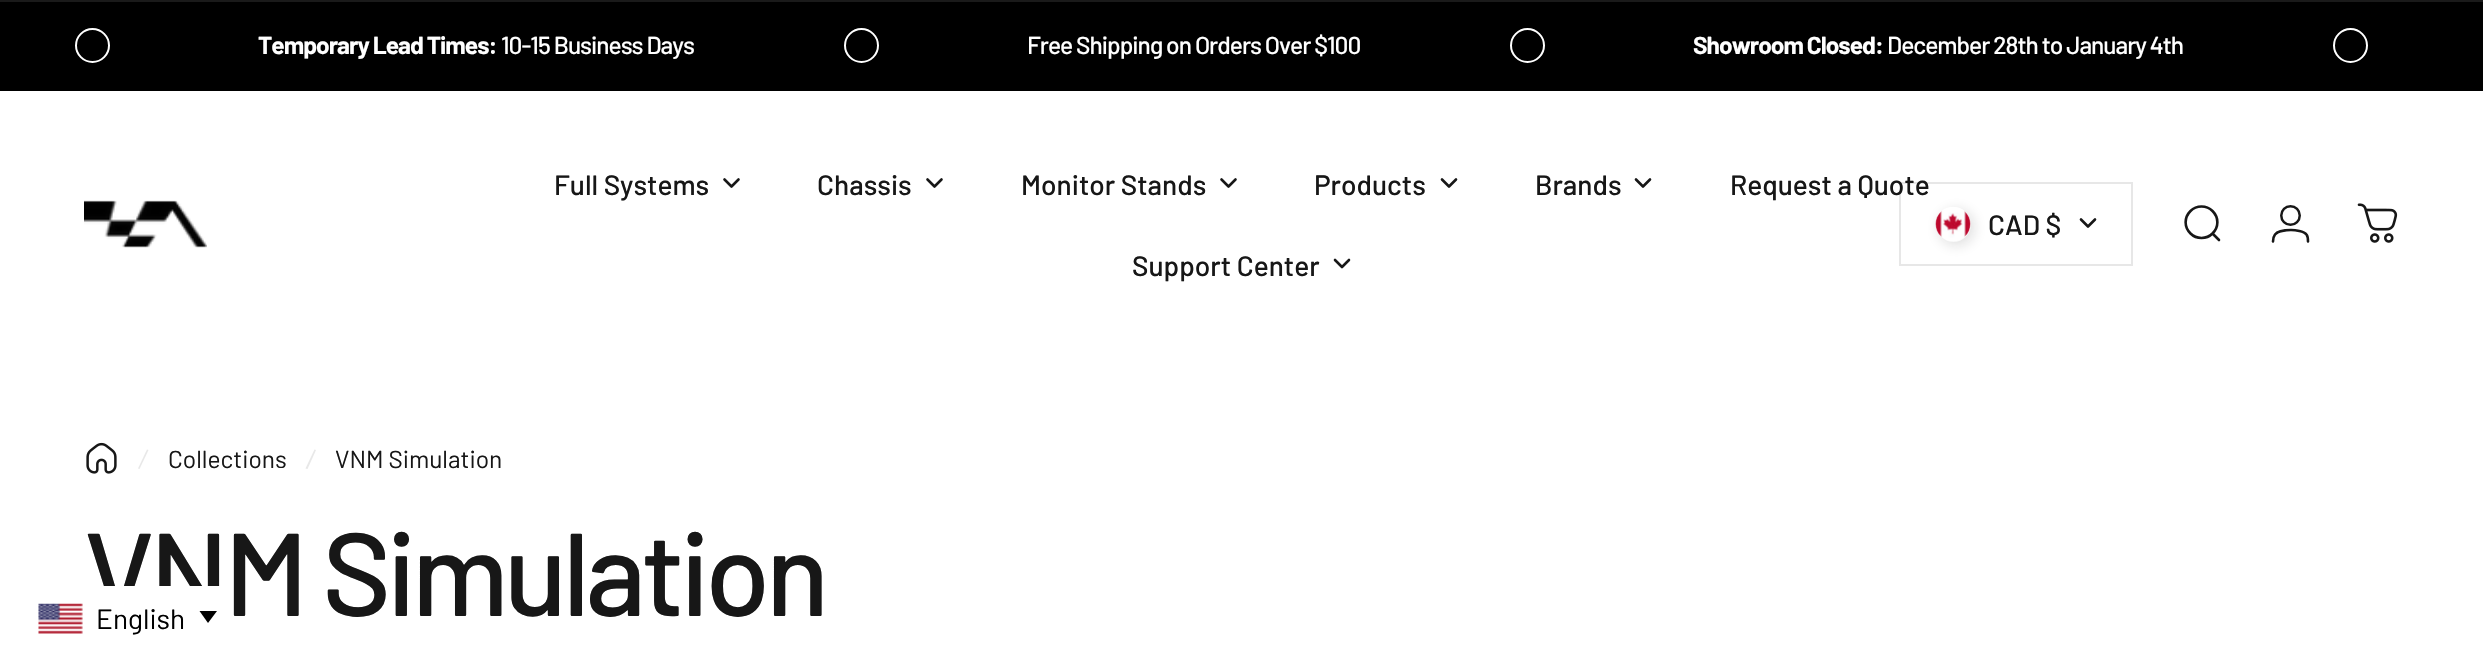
void draw(SkCanvas* canvas) {
    SkPaint paint;
    paint.setAntiAlias(true);
    auto face = [&](const char* family, int weight, float size, bool italic = false) {
        SkFontStyle style(weight, SkFontStyle::kNormal_Width,
            italic ? SkFontStyle::kItalic_Slant : SkFontStyle::kUpright_Slant);
        SkFont result(fontMgr->matchFamilyStyle(family, style), size);
        result.setSubpixel(true);
        return result;
    };
    auto write = [&](const char* s, float x, float y, const SkFont& font, SkColor color) {
        SkPaint ink(SkColor4f::FromColor(color));
        ink.setAntiAlias(true);
        canvas->drawString(s, x, y, font, ink);
    };
    auto writeSpaced = [&](const char* s, float x, float y, const SkFont& font, const SkPaint& ink, float letter, float word) {
        std::vector<SkGlyphID> glyphs(font.countText(s, strlen(s), SkTextEncoding::kUTF8));
        std::vector<float> xs(glyphs.size());
        font.textToGlyphs(s, strlen(s), SkTextEncoding::kUTF8, glyphs);
        font.getXPos(glyphs, xs, x);
        float extra = 0;
        for (size_t i = 0; i < glyphs.size(); i++) {
            xs[i] += extra;
            extra += letter + word * (glyphs[i] == font.unicharToGlyph(' '));
        }
        canvas->drawTextBlob(SkTextBlob::MakeFromPosHGlyphs(glyphs, xs, y, font), 0, 0, ink);
    };
    auto block = [&](float x, float y, float w, float h, SkColor color) {
        SkPaint ink(SkColor4f::FromColor(color));
        ink.setAntiAlias(true);
        canvas->drawRect(SkRect::MakeXYWH(x, y, w, h), ink);
    };
    auto card = [&](float x, float y, float w, float h, float radius, SkColor color) {
        SkPaint ink(SkColor4f::FromColor(color));
        ink.setAntiAlias(true);
        canvas->drawRoundRect(SkRect::MakeXYWH(x, y, w, h), radius, radius, ink);
    };
    auto paste = [&](const char* path, float x, float y, float w, float h) {
        auto image = SkImages::DeferredFromEncodedData(SkData::MakeFromFileName(path));
        canvas->drawImageRect(image, SkRect::MakeXYWH(x, y, w, h), SkSamplingOptions());
    };
    canvas->clear(SK_ColorWHITE);
    block(0, 0, 2483, 2, SkColorSetRGB(26, 26, 26));
    block(0, 2, 2483, 89, SK_ColorBLACK);
    paint.setStyle(SkPaint::kStroke_Style);
    paint.setStrokeWidth(2);
    paint.setColor(SK_ColorWHITE);
    canvas->drawCircle(92.5f, 45.5f, 16.5f, paint);
    auto kFont1 = face("Barlow", 700, 24.5f);
    paint.setStyle(SkPaint::kFill_Style);
    writeSpaced("Temporary Lead Times:", 258, 54, kFont1, paint, -1, 0);
    auto kFont2 = face("Barlow", 500, 24.5f);
    writeSpaced("10-15 Business Days", 501, 54, kFont2, paint, -1, 0);
    paint.setStyle(SkPaint::kStroke_Style);
    canvas->drawCircle(861.5f, 45.5f, 16.5f, paint);
    paint.setStyle(SkPaint::kFill_Style);
    writeSpaced("Free Shipping on Orders Over $100", 1027, 54, kFont2, paint, -1, 0);
    paint.setStyle(SkPaint::kStroke_Style);
    canvas->drawCircle(1527.5f, 45.5f, 16.5f, paint);
    paint.setStyle(SkPaint::kFill_Style);
    writeSpaced("Showroom Closed:", 1693, 54, kFont1, paint, -1, 0);
    writeSpaced("December 28th to January 4th", 1887, 54, kFont2, paint, -1, 0);
    paint.setStyle(SkPaint::kStroke_Style);
    canvas->drawCircle(2350.5f, 45.5f, 16.5f, paint);
    paste("pic1.png", 84, 200, 123, 48);
    auto kFont3 = face("Barlow", 500, 28);
    write("Full Systems", 554, 195, kFont3, SkColorSetRGB(23, 23, 23));
    paint.setStrokeWidth(2.6f);
    paint.setStrokeCap(SkPaint::kRound_Cap);
    paint.setStrokeJoin(SkPaint::kRound_Join);
    paint.setColor(SkColorSetRGB(23, 23, 23));
    canvas->drawPath(SkPathBuilder().moveTo(724.5f, 179.5f).lineTo(731.5f, 186.5f).lineTo(738.5f, 179.5f).detach(), paint);
    write("Chassis", 817, 195, kFont3, SkColorSetRGB(23, 23, 23));
    canvas->drawPath(SkPathBuilder().moveTo(927.5f, 179.5f).lineTo(934.5f, 186.5f).lineTo(941.5f, 179.5f).detach(), paint);
    write("Monitor Stands", 1021, 195, kFont3, SkColorSetRGB(23, 23, 23));
    canvas->drawPath(SkPathBuilder().moveTo(1221.5f, 179.5f).lineTo(1228.5f, 186.5f).lineTo(1235.5f, 179.5f).detach(), paint);
    write("Products", 1314, 195, kFont3, SkColorSetRGB(23, 23, 23));
    canvas->drawPath(SkPathBuilder().moveTo(1442, 179.5f).lineTo(1449, 186.5f).lineTo(1456, 179.5f).detach(), paint);
    write("Brands", 1535, 195, kFont3, SkColorSetRGB(23, 23, 23));
    canvas->drawPath(SkPathBuilder().moveTo(1636, 179.5f).lineTo(1643, 186.5f).lineTo(1650, 179.5f).detach(), paint);
    write("Request a Quote", 1730, 195, kFont3, SkColorSetRGB(23, 23, 23));
    write("Support Center", 1132, 276, kFont3, SkColorSetRGB(23, 23, 23));
    canvas->drawPath(SkPathBuilder().moveTo(1335, 260).lineTo(1342, 267).lineTo(1349, 260).detach(), paint);
    paint.setStrokeWidth(2);
    paint.setStrokeCap(SkPaint::kButt_Cap);
    paint.setStrokeJoin(SkPaint::kMiter_Join);
    paint.setColor(SkColorSetARGB(26, 23, 23, 23));
    canvas->drawRect(SkRect::MakeXYWH(1900, 183, 232, 82), paint);
    paint.setStyle(SkPaint::kFill_Style);
    paint.setColor(SkColorSetARGB(38, 23, 23, 23));
    paint.setMaskFilter(SkMaskFilter::MakeBlur(kNormal_SkBlurStyle, 7));
    canvas->drawRoundRect(SkRect::MakeXYWH(1939, 210, 35, 35), 17.5f, 17.5f, paint);
    paint.setMaskFilter(nullptr);
    paint.setColor(SkColorSetRGB(250, 250, 250));
    canvas->drawCircle(1953.5f, 224.5f, 17.5f, paint);
    paste("pic2.png", 1935, 207, 36, 34);
    write("CAD $", 1988, 235, kFont3, SkColorSetRGB(23, 23, 23));
    paint.setStyle(SkPaint::kStroke_Style);
    paint.setStrokeWidth(2.6f);
    paint.setStrokeCap(SkPaint::kRound_Cap);
    paint.setStrokeJoin(SkPaint::kRound_Join);
    paint.setColor(SkColorSetRGB(23, 23, 23));
    canvas->drawPath(SkPathBuilder().moveTo(2081, 219.5f).lineTo(2088, 226.5f).lineTo(2095, 219.5f).detach(), paint);
    paint.setStrokeJoin(SkPaint::kMiter_Join);
    canvas->drawPath(SkPathBuilder().moveTo(2219, 240).lineTo(2212.5f, 233.5f).moveTo(2212.5f, 233.5f).cubicTo(2219, 227, 2219, 217.5f, 2212.5f, 211).cubicTo(2206.5f, 205, 2196.5f, 205, 2190.5f, 211).cubicTo(2184, 217.5f, 2184, 227, 2190.5f, 233.5f).cubicTo(2196.5f, 239.5f, 2206.5f, 239.5f, 2212.5f, 233.5f).close().detach(), paint);
    paint.setStrokeWidth(2.5f);
    paint.setStrokeCap(SkPaint::kButt_Cap);
    canvas->drawCircle(2290.5f, 215.5f, 9.25f, paint);
    paint.setStrokeWidth(2.6f);
    paint.setStrokeCap(SkPaint::kRound_Cap);
    canvas->drawPath(SkPathBuilder().moveTo(2291, 230).cubicTo(2295, 230, 2304, 231, 2306.5f, 234.5f).cubicTo(2308, 236.5f, 2308, 239, 2308, 241.5f).moveTo(2291, 230).cubicTo(2286.5f, 230, 2277.5f, 231, 2275, 234.5f).cubicTo(2273.5f, 236.5f, 2273, 239, 2273, 241.5f).detach(), paint);
    paste("pic3.png", 2357, 203, 41, 40);
    paste("pic4.png", 86, 442, 31, 32);
    paint.setStyle(SkPaint::kFill_Style);
    paint.setColor(SkColorSetRGB(232, 232, 232));
    canvas->drawPath(SkPathBuilder().moveTo(147, 449.5f).lineTo(148.5f, 450).lineTo(139.5f, 469).lineTo(138, 468.5f).close().detach(), paint);
    auto kFont4 = face("Barlow", 400, 24.5f);
    write("Collections", 168, 468, kFont4, SkColorSetRGB(23, 23, 23));
    canvas->drawPath(SkPathBuilder().moveTo(314.5f, 449.5f).lineTo(316, 450).lineTo(307.5f, 469).lineTo(305.5f, 468.5f).close().detach(), paint);
    write("VNM Simulation", 335, 468, kFont4, SkColorSetRGB(23, 23, 23));
    auto kFont5 = face("Barlow", 500, 117.5f);
    paint.setColor(SkColorSetRGB(23, 23, 23));
    writeSpaced("VNM Simulation", 84, 616, kFont5, paint, -4.75f, 0);
    card(18, 586, 215, 65, 7, SK_ColorWHITE);
    paste("pic5.png", 38, 603, 45, 31);
    auto kFont6 = face("Barlow", 400, 28);
    write("English", 96, 629, kFont6, SK_ColorBLACK);
    paint.setColor(SK_ColorBLACK);
    canvas->drawPath(SkPathBuilder().moveTo(199.5f, 611).lineTo(217, 611).lineTo(208, 623).close().detach(), paint);
}
